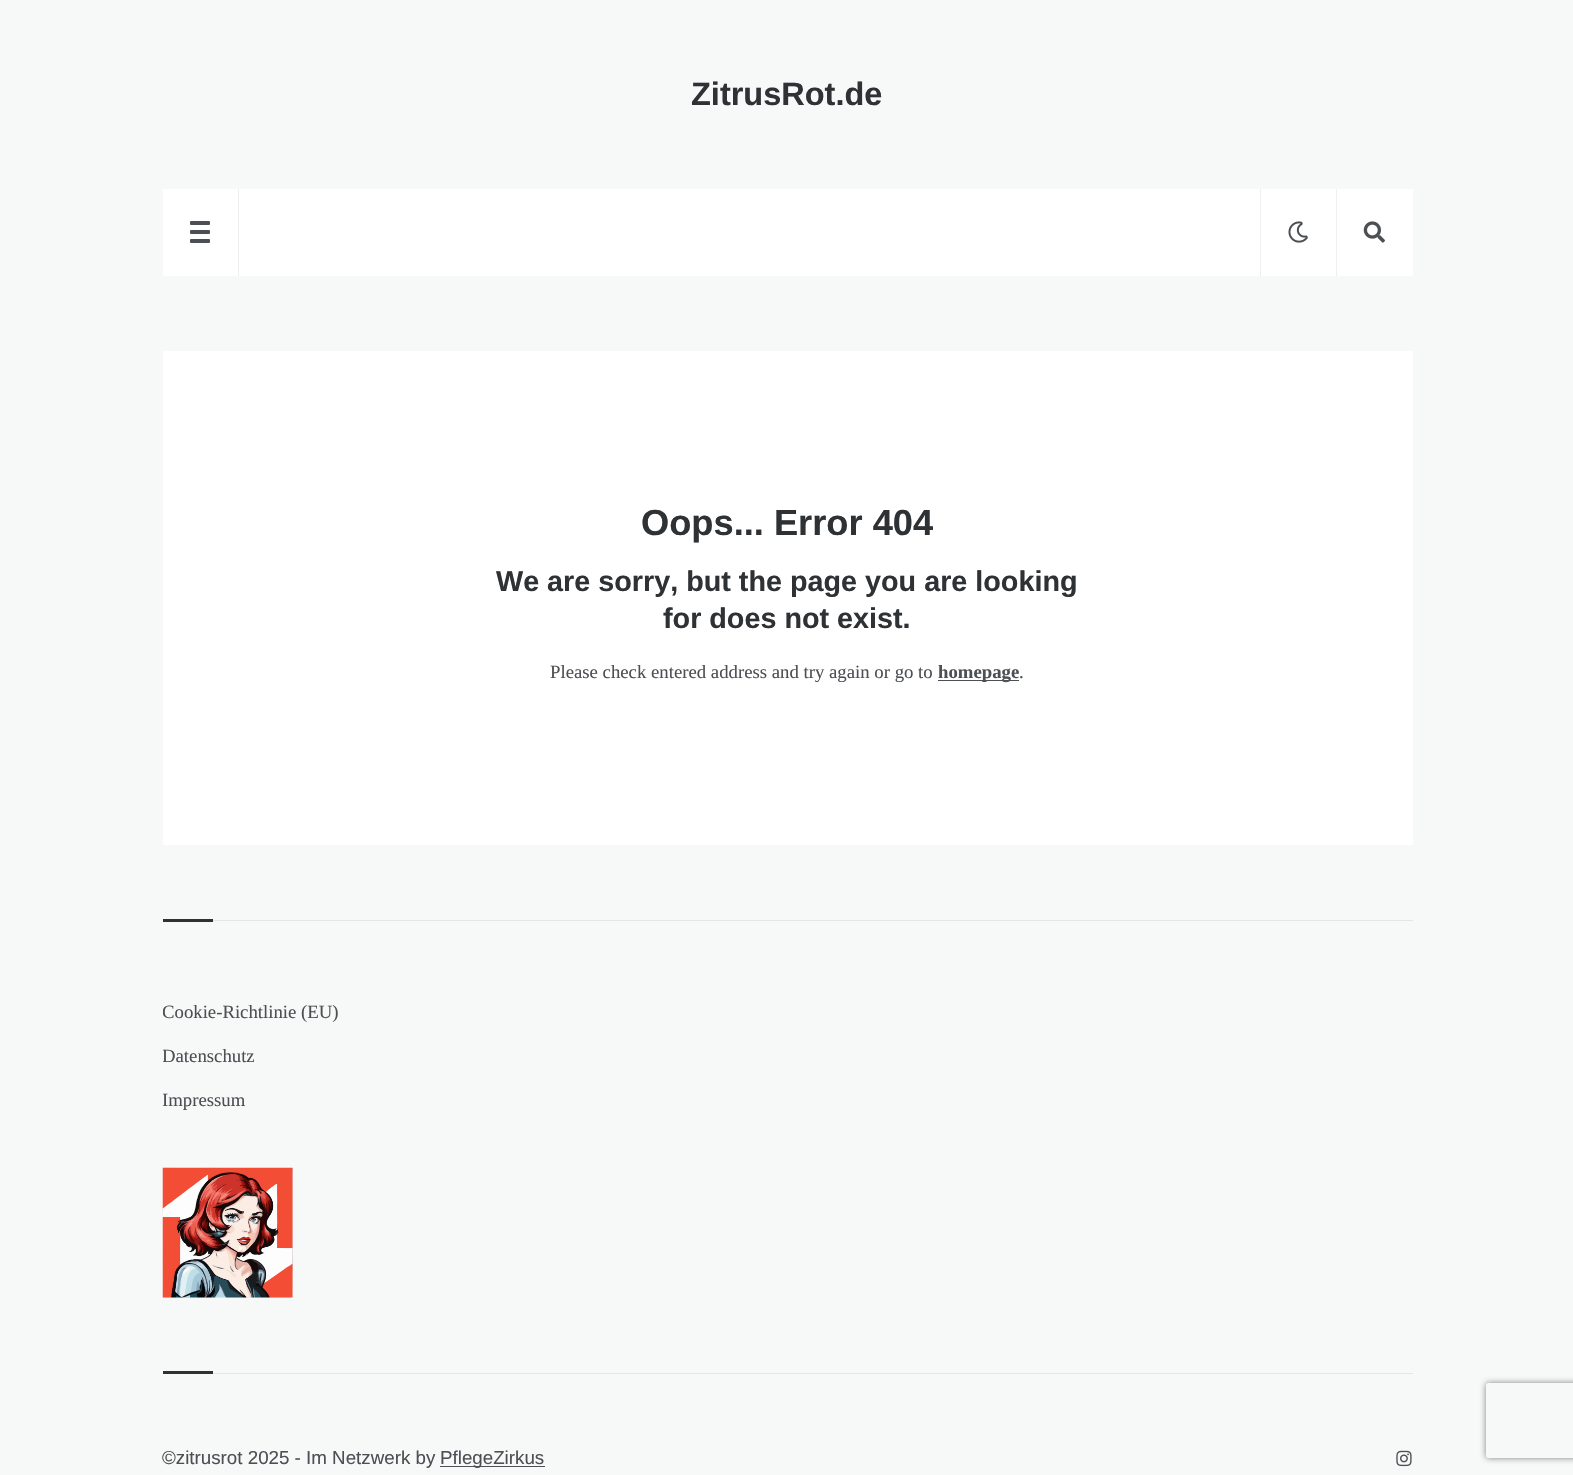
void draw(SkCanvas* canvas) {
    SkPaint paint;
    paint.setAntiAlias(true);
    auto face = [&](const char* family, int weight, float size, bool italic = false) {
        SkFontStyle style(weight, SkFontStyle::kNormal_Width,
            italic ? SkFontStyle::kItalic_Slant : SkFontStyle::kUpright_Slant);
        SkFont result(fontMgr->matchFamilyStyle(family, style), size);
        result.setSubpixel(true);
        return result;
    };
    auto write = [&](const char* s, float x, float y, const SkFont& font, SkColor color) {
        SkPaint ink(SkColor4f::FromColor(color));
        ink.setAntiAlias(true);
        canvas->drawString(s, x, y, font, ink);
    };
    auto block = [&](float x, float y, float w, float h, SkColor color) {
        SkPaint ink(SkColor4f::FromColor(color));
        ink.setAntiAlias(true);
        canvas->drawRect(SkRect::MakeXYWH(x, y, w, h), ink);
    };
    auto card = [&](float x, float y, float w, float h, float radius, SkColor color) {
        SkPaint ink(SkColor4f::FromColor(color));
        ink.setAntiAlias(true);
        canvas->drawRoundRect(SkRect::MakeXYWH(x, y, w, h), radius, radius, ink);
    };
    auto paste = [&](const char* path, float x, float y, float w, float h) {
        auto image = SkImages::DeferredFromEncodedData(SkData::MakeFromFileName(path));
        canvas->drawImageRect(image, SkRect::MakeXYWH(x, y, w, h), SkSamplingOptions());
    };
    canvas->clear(SkColorSetRGB(247, 248, 248));
    auto kFont1 = face("Liberation Sans", 700, 32.5f);
    write("ZitrusRot.de", 691, 105, kFont1, SkColorSetRGB(47, 50, 53));
    block(163, 189, 1250, 87, SK_ColorWHITE);
    block(238, 189, 1, 87, SkColorSetRGB(238, 239, 239));
    card(190, 230, 20, 4, 1, SkColorSetRGB(76, 79, 83));
    card(190, 221, 20, 4, 1, SkColorSetRGB(76, 79, 83));
    card(190, 239, 20, 4, 1, SkColorSetRGB(76, 79, 83));
    block(1260, 189, 1, 87, SkColorSetRGB(238, 239, 239));
    paste("pic1.png", 1288, 221, 20, 22);
    block(1336, 189, 1, 87, SkColorSetRGB(238, 239, 239));
    paste("pic2.png", 1363, 221, 22, 22);
    block(163, 351, 1250, 494, SK_ColorWHITE);
    auto kFont2 = face("Liberation Sans", 700, 36.25f);
    write("Oops... Error 404", 641, 535, kFont2, SkColorSetRGB(47, 50, 53));
    auto kFont3 = face("Liberation Sans", 700, 28.75f);
    write("We are sorry, but the page you are looking", 496, 591, kFont3, SkColorSetRGB(47, 50, 53));
    write("for does not exist.", 663, 628, kFont3, SkColorSetRGB(47, 50, 53));
    auto kFont4 = face("Liberation Serif", 400, 18.75f);
    write("Please check entered address and try again or go to", 550, 678, kFont4, SkColorSetRGB(76, 79, 83));
    block(938, 680, 81, 1, SkColorSetRGB(76, 79, 83));
    auto kFont5 = face("Liberation Serif", 700, 18.75f);
    write("homepage", 938, 678, kFont5, SkColorSetRGB(76, 79, 83));
    write(".", 1019, 678, kFont4, SkColorSetRGB(76, 79, 83));
    block(213, 920, 1200, 1, SkColorSetRGB(227, 229, 230));
    block(163, 919, 50, 3, SkColorSetRGB(47, 50, 53));
    canvas->save();
    canvas->clipRect(SkRect::MakeXYWH(163, 996, 391, 122));
    write("Cookie-Richtlinie (EU)", 162, 1018, kFont4, SkColorSetRGB(76, 79, 83));
    write("Datenschutz", 162, 1062, kFont4, SkColorSetRGB(76, 79, 83));
    write("Impressum", 162, 1106, kFont4, SkColorSetRGB(76, 79, 83));
    canvas->restore();
    paste("pic3.png", 162, 1167, 131, 131);
    block(213, 1373, 1200, 1, SkColorSetRGB(227, 229, 230));
    block(163, 1371, 50, 3, SkColorSetRGB(47, 50, 53));
    auto kFont6 = face("Liberation Sans", 400, 18.75f);
    write("©zitrusrot 2025 - Im Netzwerk by", 162, 1464, kFont6, SkColorSetRGB(76, 79, 83));
    block(440, 1466, 105, 1, SkColorSetRGB(76, 79, 83));
    write("PflegeZirkus", 440, 1464, kFont6, SkColorSetRGB(76, 79, 83));
    paste("pic4.png", 1396, 1450, 16, 17);
    canvas->save();
    canvas->clipPath(SkPathBuilder(SkPathFillType::kEvenOdd).moveTo(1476, 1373).lineTo(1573, 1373).lineTo(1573, 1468).lineTo(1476, 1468).close().moveTo(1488.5f, 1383).lineTo(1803.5f, 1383).cubicTo(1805, 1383, 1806, 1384, 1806, 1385.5f).lineTo(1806, 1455.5f).cubicTo(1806, 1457, 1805, 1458, 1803.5f, 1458).lineTo(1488.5f, 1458).cubicTo(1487, 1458, 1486, 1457, 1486, 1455.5f).lineTo(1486, 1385.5f).cubicTo(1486, 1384, 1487, 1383, 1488.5f, 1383).close().detach(), true);
    paint.setColor(SkColorSetRGB(128, 128, 128));
    paint.setMaskFilter(SkMaskFilter::MakeBlur(kNormal_SkBlurStyle, 3));
    canvas->drawRoundRect(SkRect::MakeXYWH(1486, 1383, 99, 75), 2.5f, 2.5f, paint);
    paint.setMaskFilter(nullptr);
    canvas->restore();
}
